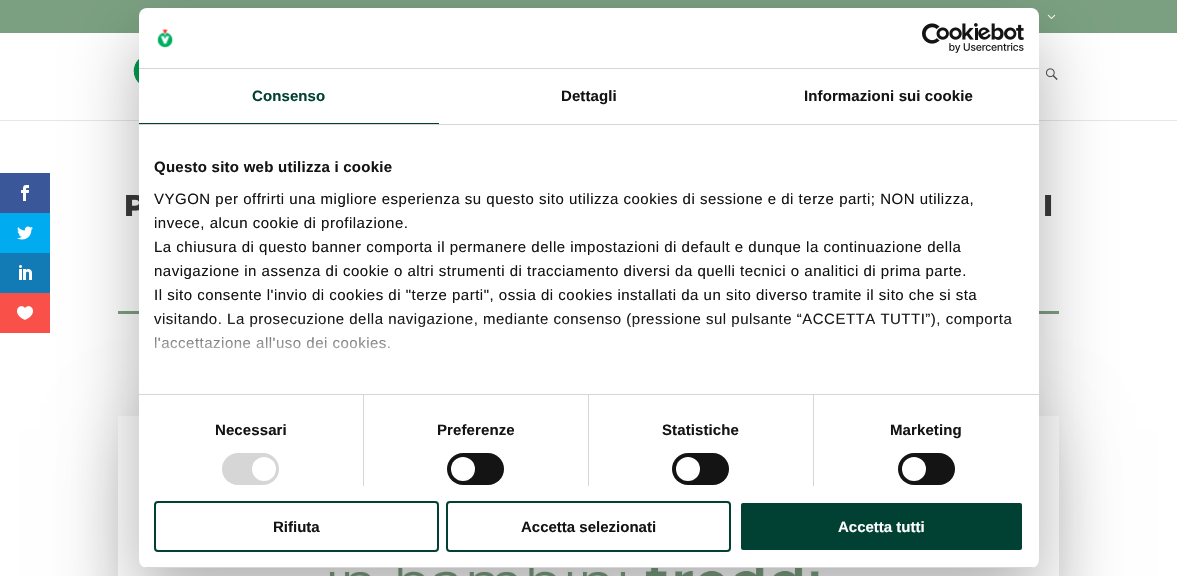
void draw(SkCanvas* canvas) {
    SkPaint paint;
    paint.setAntiAlias(true);
    auto face = [&](const char* family, int weight, float size, bool italic = false) {
        SkFontStyle style(weight, SkFontStyle::kNormal_Width,
            italic ? SkFontStyle::kItalic_Slant : SkFontStyle::kUpright_Slant);
        SkFont result(fontMgr->matchFamilyStyle(family, style), size);
        result.setSubpixel(true);
        return result;
    };
    auto write = [&](const char* s, float x, float y, const SkFont& font, SkColor color) {
        SkPaint ink(SkColor4f::FromColor(color));
        ink.setAntiAlias(true);
        canvas->drawString(s, x, y, font, ink);
    };
    auto writeSpaced = [&](const char* s, float x, float y, const SkFont& font, const SkPaint& ink, float letter, float word) {
        std::vector<SkGlyphID> glyphs(font.countText(s, strlen(s), SkTextEncoding::kUTF8));
        std::vector<float> xs(glyphs.size());
        font.textToGlyphs(s, strlen(s), SkTextEncoding::kUTF8, glyphs);
        font.getXPos(glyphs, xs, x);
        float extra = 0;
        for (size_t i = 0; i < glyphs.size(); i++) {
            xs[i] += extra;
            extra += letter + word * (glyphs[i] == font.unicharToGlyph(' '));
        }
        canvas->drawTextBlob(SkTextBlob::MakeFromPosHGlyphs(glyphs, xs, y, font), 0, 0, ink);
    };
    auto block = [&](float x, float y, float w, float h, SkColor color) {
        SkPaint ink(SkColor4f::FromColor(color));
        ink.setAntiAlias(true);
        canvas->drawRect(SkRect::MakeXYWH(x, y, w, h), ink);
    };
    auto card = [&](float x, float y, float w, float h, float radius, SkColor color) {
        SkPaint ink(SkColor4f::FromColor(color));
        ink.setAntiAlias(true);
        canvas->drawRoundRect(SkRect::MakeXYWH(x, y, w, h), radius, radius, ink);
    };
    auto paste = [&](const char* path, float x, float y, float w, float h) {
        auto image = SkImages::DeferredFromEncodedData(SkData::MakeFromFileName(path));
        canvas->drawImageRect(image, SkRect::MakeXYWH(x, y, w, h), SkSamplingOptions());
    };
    canvas->clear(SK_ColorWHITE);
    block(0, 173, 50, 40, SkColorSetRGB(58, 87, 154));
    paste("pic1.png", 21, 185, 8, 16);
    block(0, 213, 50, 40, SkColorSetRGB(0, 171, 240));
    paste("pic2.png", 17, 226, 16, 14);
    block(0, 253, 50, 40, SkColorSetRGB(18, 123, 182));
    paste("pic3.png", 19, 265, 13, 15);
    canvas->save();
    canvas->clipPath(SkPathBuilder(SkPathFillType::kEvenOdd).moveTo(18, 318).lineTo(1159, 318).lineTo(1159, 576).lineTo(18, 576).close().moveTo(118, 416).lineTo(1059, 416).lineTo(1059, 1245).lineTo(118, 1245).close().detach(), true);
    paint.setColor(SkColorSetARGB(56, 0, 0, 0));
    paint.setMaskFilter(SkMaskFilter::MakeBlur(kNormal_SkBlurStyle, 37));
    canvas->drawRect(SkRect::MakeXYWH(130, 430, 917, 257), paint);
    paint.setMaskFilter(nullptr);
    canvas->restore();
    block(0, 293, 50, 40, SkColorSetRGB(249, 81, 73));
    paste("pic4.png", 17, 306, 16, 14);
    block(0, 0, 1177, 33, SkColorSetRGB(123, 160, 129));
    paste("pic7.png", 1047, 14, 9, 5);
    block(0, 120, 1177, 1, SkColorSetRGB(230, 230, 230));
    paste("pic8.png", 133, 59, 6, 24);
    paste("pic9.png", 1046, 68, 12, 12);
    block(118, 311, 941, 3, SkColorSetRGB(123, 160, 129));
    paste("pic10.png", 263, 568, 655, 8);
    paint.setColor(SkColorSetARGB(77, 0, 0, 0));
    paint.setMaskFilter(SkMaskFilter::MakeBlur(kNormal_SkBlurStyle, 34));
    canvas->drawRoundRect(SkRect::MakeXYWH(139, 40, 900, 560), 8, 8, paint);
    paint.setMaskFilter(nullptr);
    auto kFont1 = face("Montserrat", 100, 30);
    write("P", 124, 216, kFont1, SkColorSetRGB(51, 51, 51));
    card(139, 8, 900, 560, 8, SK_ColorWHITE);
    block(139, 68, 900, 1, SkColorSetRGB(214, 214, 214));
    paste("pic5.png", 157, 29, 17, 19);
    paste("pic6.png", 922, 23, 102, 30);
    block(139, 124, 900, 1, SkColorSetRGB(214, 214, 214));
    block(139, 123, 300, 1, SkColorSetRGB(0, 65, 51));
    auto kFont2 = face("Liberation Sans", 700, 15);
    paint.setColor(SkColorSetRGB(0, 65, 51));
    writeSpaced("Consenso", 252, 101, kFont2, paint, 0.1f, 0);
    paint.setColor(SkColorSetRGB(20, 20, 20));
    writeSpaced("Dettagli", 561, 101, kFont2, paint, 0.1f, 0);
    writeSpaced("Informazioni sui cookie", 804, 101, kFont2, paint, 0.1f, 0);
    block(139, 394, 900, 1, SkColorSetRGB(214, 214, 214));
    writeSpaced("Questo sito web utilizza i cookie", 154, 172, kFont2, paint, 0.25f, 0);
    auto kFont3 = face("Liberation Sans", 400, 15);
    writeSpaced("VYGON per offrirti una migliore esperienza su questo sito utilizza cookies di sessione e di terze parti; NON utilizza,", 154, 204, kFont3, paint, 0.5f, 0);
    writeSpaced("invece, alcun cookie di profilazione.", 154, 228, kFont3, paint, 0.5f, 0);
    writeSpaced("La chiusura di questo banner comporta il permanere delle impostazioni di default e dunque la continuazione della", 154, 252, kFont3, paint, 0.5f, 0);
    writeSpaced("navigazione in assenza di cookie o altri strumenti di tracciamento diversi da quelli tecnici o analitici di prima parte.", 154, 276, kFont3, paint, 0.5f, 0);
    writeSpaced("Il sito consente l'invio di cookies di \"terze parti\", ossia di cookies installati da un sito diverso tramite il sito che si sta", 154, 300, kFont3, paint, 0.5f, 0);
    writeSpaced("visitando. La prosecuzione della navigazione, mediante consenso (pressione sul pulsante “ACCETTA TUTTI”), comporta", 154, 324, kFont3, paint, 0.5f, 0);
    writeSpaced("l'accettazione all'uso dei cookies.", 154, 348, kFont3, paint, 0.5f, 0);
    {
        const SkColor colors[] = {SK_ColorWHITE, SkColorSetARGB(204, 255, 255, 255), SkColorSetARGB(0, 255, 255, 255)};
        const float stops[] = {0, 0.5f, 1};
        const SkPoint ends[] = {{583, 394}, {583, 319}};
        paint.setShader(SkGradientShader::MakeLinear(ends, colors, stops, 3, SkTileMode::kClamp));
        paint.setAlpha(255);
    }
    canvas->drawRect(SkRect::MakeXYWH(154, 320, 858, 29), paint);
    block(363, 395, 1, 91, SkColorSetRGB(214, 214, 214));
    paint.setShader(nullptr);
    paint.setColor(SkColorSetRGB(20, 20, 20));
    writeSpaced("Necessari", 215, 435, kFont2, paint, 0.1f, 0);
    card(222, 453, 57, 32, 16, SkColorSetRGB(214, 214, 214));
    paint.setColor(SK_ColorWHITE);
    canvas->drawCircle(264, 469, 12, paint);
    block(588, 395, 1, 91, SkColorSetRGB(214, 214, 214));
    paint.setColor(SkColorSetRGB(20, 20, 20));
    writeSpaced("Preferenze", 437, 435, kFont2, paint, 0.1f, 0);
    card(447, 453, 57, 32, 16, SkColorSetRGB(20, 20, 20));
    paint.setColor(SK_ColorWHITE);
    canvas->drawCircle(463, 469, 12, paint);
    block(813, 395, 1, 91, SkColorSetRGB(214, 214, 214));
    paint.setColor(SkColorSetRGB(20, 20, 20));
    writeSpaced("Statistiche", 662, 435, kFont2, paint, 0.1f, 0);
    card(672, 453, 57, 32, 16, SkColorSetRGB(20, 20, 20));
    paint.setColor(SK_ColorWHITE);
    canvas->drawCircle(688, 469, 12, paint);
    paint.setColor(SkColorSetRGB(20, 20, 20));
    writeSpaced("Marketing", 890, 435, kFont2, paint, 0.1f, 0);
    card(898, 453, 57, 32, 16, SkColorSetRGB(20, 20, 20));
    paint.setColor(SK_ColorWHITE);
    canvas->drawCircle(914, 469, 12, paint);
    canvas->save();
    canvas->clipPath(SkPathBuilder().moveTo(147, 8).lineTo(1031, 8).cubicTo(1035.5f, 8, 1039, 11.5f, 1039, 16).lineTo(1039, 560).cubicTo(1039, 564.5f, 1035.5f, 568, 1031, 568).lineTo(147, 568).cubicTo(142.5f, 568, 139, 564.5f, 139, 560).lineTo(139, 16).cubicTo(139, 11.5f, 142.5f, 8, 147, 8).close().detach(), true);
    block(139, 567, 900, 1, SkColorSetRGB(214, 214, 214));
    canvas->restore();
    paint.setStyle(SkPaint::kStroke_Style);
    paint.setStrokeWidth(2);
    paint.setColor(SkColorSetRGB(0, 65, 51));
    canvas->drawRoundRect(SkRect::MakeXYWH(155, 502, 283, 49), 3, 3, paint);
    write("Rifiuta", 273, 532, kFont2, SkColorSetRGB(20, 20, 20));
    canvas->drawRoundRect(SkRect::MakeXYWH(447, 502, 283, 49), 3, 3, paint);
    write("Accetta selezionati", 521, 532, kFont2, SkColorSetRGB(20, 20, 20));
    paint.setStyle(SkPaint::kFill_Style);
    canvas->drawRoundRect(SkRect::MakeXYWH(740, 502, 283, 49), 3, 3, paint);
    paint.setStyle(SkPaint::kStroke_Style);
    paint.setColor(SK_ColorWHITE);
    canvas->drawRoundRect(SkRect::MakeXYWH(740, 502, 283, 49), 3, 3, paint);
    write("Accetta tutti", 838, 532, kFont2, SK_ColorWHITE);
    write("I", 1043, 216, kFont1, SkColorSetRGB(51, 51, 51));
}
